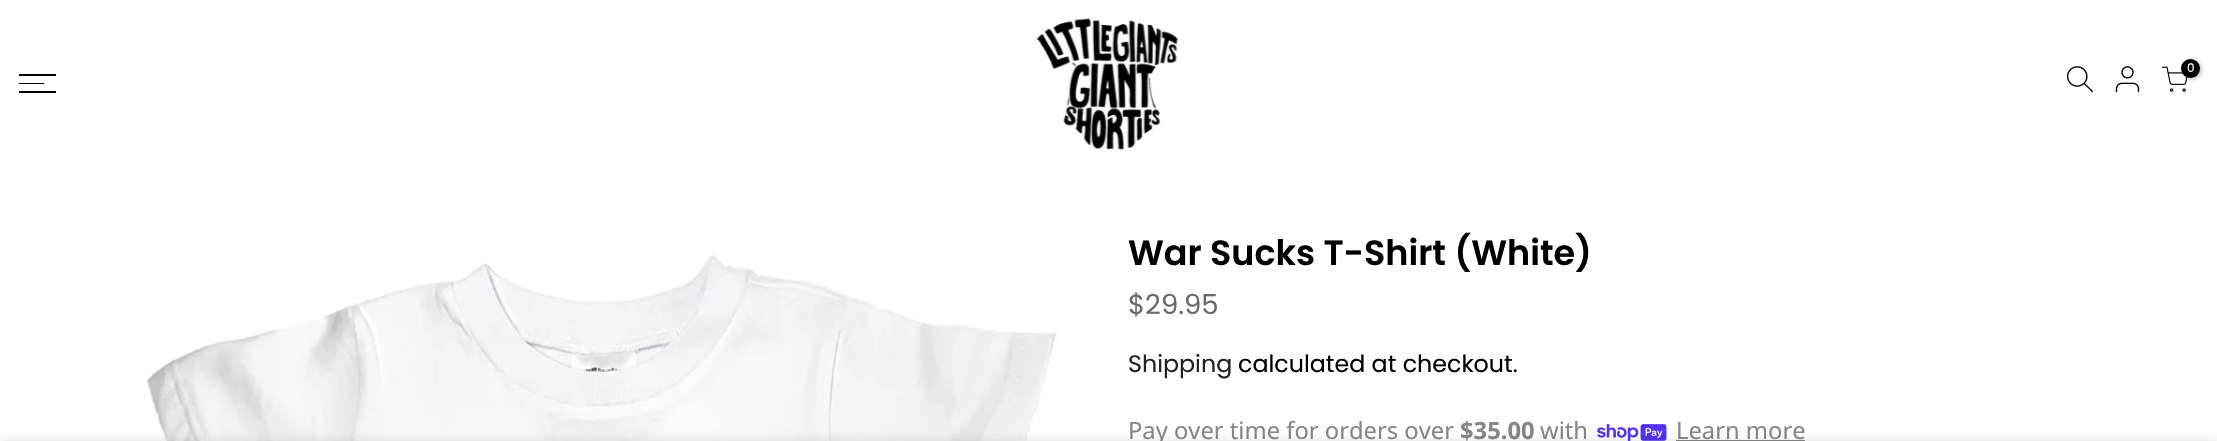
void draw(SkCanvas* canvas) {
    SkPaint paint;
    paint.setAntiAlias(true);
    auto face = [&](const char* family, int weight, float size, bool italic = false) {
        SkFontStyle style(weight, SkFontStyle::kNormal_Width,
            italic ? SkFontStyle::kItalic_Slant : SkFontStyle::kUpright_Slant);
        SkFont result(fontMgr->matchFamilyStyle(family, style), size);
        result.setSubpixel(true);
        return result;
    };
    auto write = [&](const char* s, float x, float y, const SkFont& font, SkColor color) {
        SkPaint ink(SkColor4f::FromColor(color));
        ink.setAntiAlias(true);
        canvas->drawString(s, x, y, font, ink);
    };
    auto block = [&](float x, float y, float w, float h, SkColor color) {
        SkPaint ink(SkColor4f::FromColor(color));
        ink.setAntiAlias(true);
        canvas->drawRect(SkRect::MakeXYWH(x, y, w, h), ink);
    };
    auto paste = [&](const char* path, float x, float y, float w, float h) {
        auto image = SkImages::DeferredFromEncodedData(SkData::MakeFromFileName(path));
        canvas->drawImageRect(image, SkRect::MakeXYWH(x, y, w, h), SkSamplingOptions());
    };
    canvas->clear(SK_ColorWHITE);
    paste("pic1.png", 1036, 18, 144, 132);
    paste("pic2.png", 2066, 66, 27, 27);
    paste("pic3.png", 2115, 66, 25, 27);
    paste("pic4.png", 2161, 66, 27, 26);
    paint.setColor(SkColorSetARGB(77, 0, 0, 0));
    paint.setMaskFilter(SkMaskFilter::MakeBlur(kNormal_SkBlurStyle, 2));
    canvas->drawRoundRect(SkRect::MakeXYWH(2183, 60, 18, 19), 9, 9, paint);
    paint.setMaskFilter(nullptr);
    paint.setColor(SK_ColorBLACK);
    canvas->drawCircle(2190.5f, 68.5f, 9.5f, paint);
    auto kFont1 = face("Poppins", 400, 12);
    write("0", 2187, 72, kFont1, SK_ColorWHITE);
    block(19, 74, 37, 2, SK_ColorBLACK);
    block(19, 83, 25, 1, SK_ColorBLACK);
    block(19, 91, 37, 2, SK_ColorBLACK);
    paste("pic5.png", 146, 255, 912, 186);
    auto kFont2 = face("Poppins", 600, 35);
    write("War Sucks T-Shirt (White)", 1128, 265, kFont2, SK_ColorBLACK);
    auto kFont3 = face("Poppins", 400, 27.5f);
    write("$29.95", 1128, 314, kFont3, SkColorSetRGB(105, 105, 105));
    auto kFont4 = face("Poppins", 400, 23.75f);
    write("Shipping", 1128, 372, kFont4, SkColorSetRGB(34, 34, 34));
    write("calculated at checkout.", 1238, 372, kFont4, SK_ColorBLACK);
    auto kFont5 = face("Noto Sans", 400, 23.75f);
    write("Pay over time for orders over", 1128, 439, kFont5, SkColorSetRGB(135, 135, 135));
    auto kFont6 = face("Noto Sans", 700, 23.75f);
    write("$35.00", 1460, 439, kFont6, SkColorSetRGB(135, 135, 135));
    write("with", 1540, 439, kFont5, SkColorSetRGB(135, 135, 135));
    paste("pic6.png", 1597, 424, 70, 17);
    write("Learn more", 1676, 439, kFont5, SkColorSetRGB(135, 135, 135));
    block(1676, 440, 129, 1, SkColorSetRGB(135, 135, 135));
    paint.setColor(SkColorSetARGB(31, 0, 0, 0));
    paint.setMaskFilter(SkMaskFilter::MakeBlur(kNormal_SkBlurStyle, 5.5f));
    canvas->drawRect(SkRect::MakeXYWH(0, 441, 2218, 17), paint);
    paint.setMaskFilter(nullptr);
}
